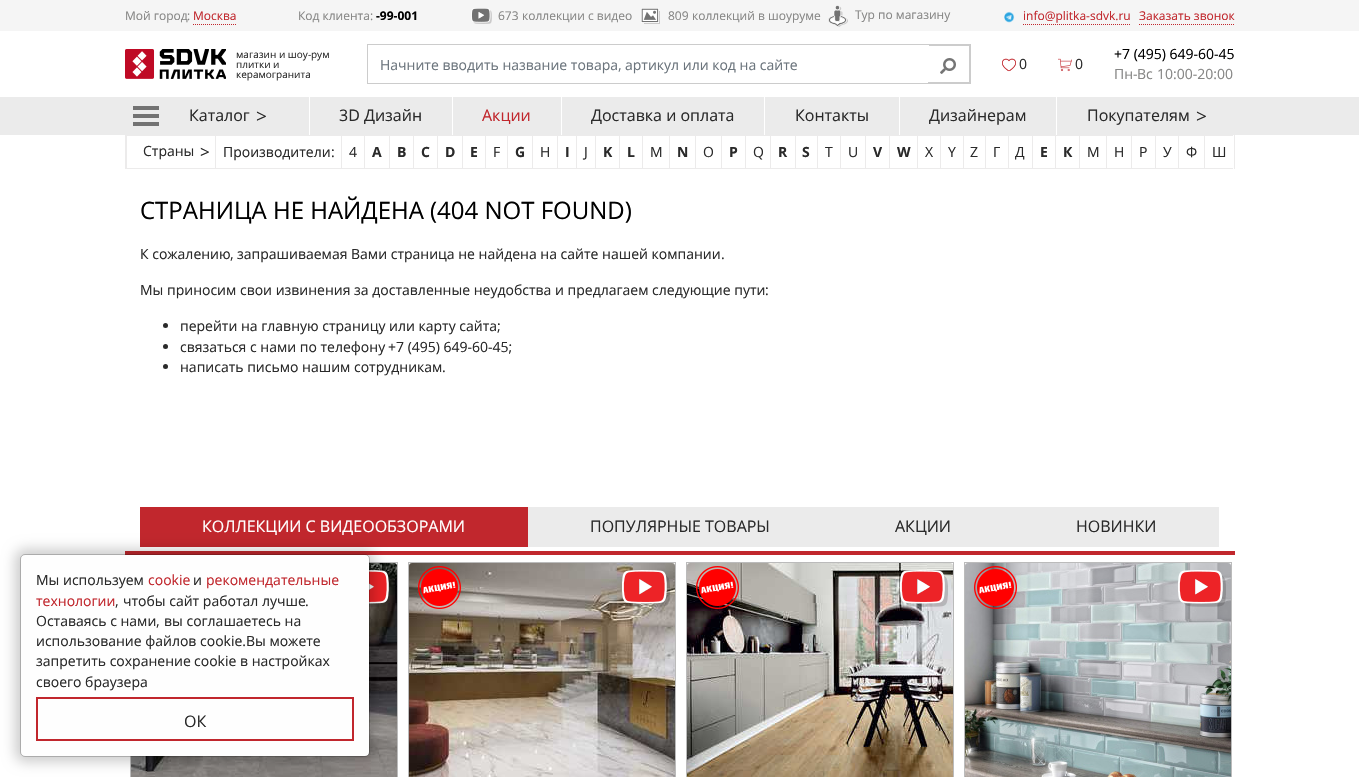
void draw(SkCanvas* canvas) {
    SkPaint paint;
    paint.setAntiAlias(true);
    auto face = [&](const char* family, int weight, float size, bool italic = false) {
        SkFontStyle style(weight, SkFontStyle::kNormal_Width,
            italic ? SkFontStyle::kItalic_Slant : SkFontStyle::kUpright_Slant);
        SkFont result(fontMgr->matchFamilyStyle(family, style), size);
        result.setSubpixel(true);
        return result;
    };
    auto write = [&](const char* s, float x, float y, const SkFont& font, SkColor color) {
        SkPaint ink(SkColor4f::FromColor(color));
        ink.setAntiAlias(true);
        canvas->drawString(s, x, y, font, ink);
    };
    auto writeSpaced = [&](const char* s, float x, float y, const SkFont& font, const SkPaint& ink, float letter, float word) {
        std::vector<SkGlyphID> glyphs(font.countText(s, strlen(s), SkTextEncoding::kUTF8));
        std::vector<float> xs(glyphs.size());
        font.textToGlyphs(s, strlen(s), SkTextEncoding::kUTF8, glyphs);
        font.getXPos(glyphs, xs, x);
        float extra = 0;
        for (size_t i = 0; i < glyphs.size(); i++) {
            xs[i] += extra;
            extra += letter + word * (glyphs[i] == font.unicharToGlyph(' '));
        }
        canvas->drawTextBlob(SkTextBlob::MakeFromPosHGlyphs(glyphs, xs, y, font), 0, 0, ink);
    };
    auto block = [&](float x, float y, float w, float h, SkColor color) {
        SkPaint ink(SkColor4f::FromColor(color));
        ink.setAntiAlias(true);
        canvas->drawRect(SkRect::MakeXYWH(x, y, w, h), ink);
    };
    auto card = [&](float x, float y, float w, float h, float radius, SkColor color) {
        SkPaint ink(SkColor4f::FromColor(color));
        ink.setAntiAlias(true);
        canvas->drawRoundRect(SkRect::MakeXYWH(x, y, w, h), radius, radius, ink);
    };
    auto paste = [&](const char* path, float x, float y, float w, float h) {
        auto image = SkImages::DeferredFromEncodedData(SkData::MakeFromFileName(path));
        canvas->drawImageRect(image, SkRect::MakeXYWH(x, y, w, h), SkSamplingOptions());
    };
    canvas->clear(SK_ColorWHITE);
    block(0, 0, 1359, 31, SkColorSetRGB(245, 245, 245));
    auto kFont1 = face("Open Sans", 400, 12);
    write("Мой город", 125, 20, kFont1, SkColorSetRGB(135, 135, 134));
    auto kFont2 = face("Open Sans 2", 400, 12);
    write(":", 187, 20, kFont2, SkColorSetRGB(135, 135, 134));
    write("Москва", 193, 20, kFont1, SkColorSetRGB(193, 39, 45));
    paint.setStyle(SkPaint::kStroke_Style);
    paint.setStrokeWidth(1);
    paint.setColor(SkColorSetRGB(193, 39, 45));
    paint.setPathEffect(SkDashPathEffect::Make({{1, 1}}, 0));
    canvas->drawPath(SkPathBuilder().moveTo(193, 24.5f).lineTo(237, 24.5f).detach(), paint);
    paint.setPathEffect(nullptr);
    write("Код клиента", 298, 20, kFont1, SkColorSetRGB(135, 135, 134));
    write(":", 370, 20, kFont2, SkColorSetRGB(135, 135, 134));
    auto kFont3 = face("Open Sans", 700, 12);
    write("-99-001", 376, 20, kFont3, SK_ColorBLACK);
    paste("pic1.png", 471, 8, 21, 16);
    write("673", 498, 20, kFont2, SkColorSetRGB(135, 135, 134));
    write("коллекции с видео", 522, 20, kFont1, SkColorSetRGB(135, 135, 134));
    paste("pic2.png", 641, 8, 19, 16);
    write("809", 668, 20, kFont2, SkColorSetRGB(135, 135, 134));
    write("коллекций в шоуруме", 692, 20, kFont1, SkColorSetRGB(135, 135, 134));
    paste("pic3.png", 828, 5, 20, 22);
    write("Тур по магазину", 855, 19, kFont1, SkColorSetRGB(135, 135, 134));
    paste("pic4.png", 1004, 11, 11, 12);
    write("info@plitka-sdvk.ru", 1023, 20, kFont2, SkColorSetRGB(193, 39, 45));
    paint.setPathEffect(SkDashPathEffect::Make({{1, 1}}, 0));
    canvas->drawPath(SkPathBuilder().moveTo(1023, 24.5f).lineTo(1131, 24.5f).detach(), paint);
    paint.setPathEffect(nullptr);
    write("Заказать звонок", 1139, 20, kFont1, SkColorSetRGB(193, 39, 45));
    paint.setPathEffect(SkDashPathEffect::Make({{1, 1}}, 0));
    canvas->drawPath(SkPathBuilder().moveTo(1139, 24.5f).lineTo(1234, 24.5f).detach(), paint);
    paint.setPathEffect(nullptr);
    paste("pic5.png", 125, 49, 101, 30);
    auto kFont4 = face("Open Sans", 400, 10);
    write("магазин и шоу", 236, 58, kFont4, SkColorSetRGB(42, 42, 42));
    auto kFont5 = face("Open Sans 2", 400, 10);
    write("-", 308, 58, kFont5, SkColorSetRGB(42, 42, 42));
    write("рум", 311, 58, kFont4, SkColorSetRGB(42, 42, 42));
    write("плитки и", 236, 68, kFont4, SkColorSetRGB(42, 42, 42));
    write("керамогранита", 236, 78, kFont4, SkColorSetRGB(42, 42, 42));
    paint.setColor(SkColorSetRGB(204, 204, 204));
    canvas->drawRect(SkRect::MakeXYWH(367.5f, 44.5f, 603, 39), paint);
    auto kFont6 = face("Open Sans", 400, 14);
    write("Начните вводить название товара", 380, 70, kFont6, SkColorSetRGB(108, 117, 125));
    auto kFont7 = face("Open Sans 2", 400, 14);
    write(",", 618, 70, kFont7, SkColorSetRGB(108, 117, 125));
    write("артикул или код на сайте", 625, 70, kFont6, SkColorSetRGB(108, 117, 125));
    block(928, 45, 42, 1, SkColorSetRGB(204, 204, 204));
    block(928, 45, 1, 1, SK_ColorWHITE);
    block(928, 82, 42, 1, SkColorSetRGB(204, 204, 204));
    block(969, 45, 1, 38, SkColorSetRGB(204, 204, 204));
    paste("pic6.png", 940, 58, 16, 16);
    paste("pic7.png", 1002, 59, 14, 12);
    paste("pic8.png", 1002, 58, 14, 14);
    write("0", 1019, 69, kFont7, SkColorSetRGB(42, 42, 42));
    paste("pic9.png", 1058, 58, 14, 14);
    write("0", 1075, 69, kFont7, SkColorSetRGB(42, 42, 42));
    write("+7 (495) 649-60-45", 1114, 59, kFont7, SK_ColorBLACK);
    write("Пн", 1114, 79, kFont6, SkColorSetRGB(135, 135, 134));
    write("-", 1133, 79, kFont7, SkColorSetRGB(135, 135, 134));
    write("Вс", 1137, 79, kFont6, SkColorSetRGB(135, 135, 134));
    write("10:00-20:00", 1157, 79, kFont7, SkColorSetRGB(135, 135, 134));
    block(0, 97, 1359, 38, SkColorSetRGB(235, 235, 235));
    block(309, 97, 1, 38, SK_ColorWHITE);
    block(133, 106, 26, 4, SkColorSetRGB(114, 114, 114));
    block(133, 114, 26, 4, SkColorSetRGB(114, 114, 114));
    block(133, 122, 26, 4, SkColorSetRGB(114, 114, 114));
    auto kFont8 = face("Open Sans", 400, 16);
    write("Каталог", 189, 121, kFont8, SkColorSetRGB(42, 42, 42));
    auto kFont9 = face("Open Sans 2", 400, 19);
    paint.setStyle(SkPaint::kFill_Style);
    paint.setColor(SkColorSetRGB(42, 42, 42));
    writeSpaced(">", 256, 123, kFont9, paint, -2, 0);
    block(452, 97, 1, 38, SK_ColorWHITE);
    auto kFont10 = face("Open Sans 2", 400, 16);
    write("3D", 339, 121, kFont10, SkColorSetRGB(42, 42, 42));
    write("Дизайн", 364, 121, kFont8, SkColorSetRGB(42, 42, 42));
    block(561, 97, 1, 38, SK_ColorWHITE);
    write("Акции", 482, 121, kFont8, SkColorSetRGB(193, 39, 45));
    block(764, 97, 1, 38, SK_ColorWHITE);
    write("Доставка и оплата", 591, 121, kFont8, SkColorSetRGB(42, 42, 42));
    block(899, 97, 1, 38, SK_ColorWHITE);
    write("Контакты", 795, 121, kFont8, SkColorSetRGB(42, 42, 42));
    block(1056, 97, 1, 38, SK_ColorWHITE);
    write("Дизайнерам", 929, 121, kFont8, SkColorSetRGB(42, 42, 42));
    write("Покупателям", 1087, 121, kFont8, SkColorSetRGB(42, 42, 42));
    writeSpaced(">", 1196, 123, kFont9, paint, -2, 0);
    block(1234, 135, 1, 34, SkColorSetRGB(236, 235, 235));
    block(125, 135, 1, 34, SkColorSetRGB(236, 235, 235));
    block(126, 135, 1107, 1, SkColorSetRGB(236, 235, 235));
    block(126, 168, 1107, 1, SkColorSetRGB(236, 235, 235));
    block(126, 135, 1, 34, SkColorSetRGB(236, 235, 235));
    write("Страны", 143, 156, kFont6, SkColorSetRGB(42, 42, 42));
    auto kFont11 = face("Open Sans 2", 400, 17);
    writeSpaced(">", 200, 158, kFont11, paint, -2, 0);
    block(215, 135, 1, 34, SkColorSetRGB(236, 235, 235));
    write("Производители", 223, 157, kFont6, SkColorSetRGB(42, 42, 42));
    write(":", 331, 157, kFont7, SkColorSetRGB(42, 42, 42));
    block(341, 135, 1, 34, SkColorSetRGB(236, 235, 235));
    write("4", 349, 157, kFont7, SkColorSetRGB(42, 42, 42));
    block(364, 135, 1, 34, SkColorSetRGB(236, 235, 235));
    auto kFont12 = face("Open Sans", 700, 14);
    write("A", 372, 157, kFont12, SkColorSetRGB(42, 42, 42));
    block(389, 135, 1, 34, SkColorSetRGB(236, 235, 235));
    write("B", 397, 157, kFont12, SkColorSetRGB(42, 42, 42));
    block(413, 135, 1, 34, SkColorSetRGB(236, 235, 235));
    write("C", 421, 157, kFont12, SkColorSetRGB(42, 42, 42));
    block(437, 135, 1, 34, SkColorSetRGB(236, 235, 235));
    write("D", 445, 157, kFont12, SkColorSetRGB(42, 42, 42));
    block(462, 135, 1, 34, SkColorSetRGB(236, 235, 235));
    write("E", 470, 157, kFont12, SkColorSetRGB(42, 42, 42));
    block(485, 135, 1, 34, SkColorSetRGB(236, 235, 235));
    write("F", 493, 157, kFont7, SkColorSetRGB(42, 42, 42));
    block(507, 135, 1, 34, SkColorSetRGB(236, 235, 235));
    write("G", 515, 157, kFont12, SkColorSetRGB(42, 42, 42));
    block(532, 135, 1, 34, SkColorSetRGB(236, 235, 235));
    write("H", 540, 157, kFont7, SkColorSetRGB(42, 42, 42));
    block(557, 135, 1, 34, SkColorSetRGB(236, 235, 235));
    write("I", 565, 157, kFont12, SkColorSetRGB(42, 42, 42));
    block(576, 135, 1, 34, SkColorSetRGB(236, 235, 235));
    write("J", 584, 157, kFont7, SkColorSetRGB(42, 42, 42));
    block(595, 135, 1, 34, SkColorSetRGB(236, 235, 235));
    write("K", 603, 157, kFont12, SkColorSetRGB(42, 42, 42));
    block(619, 135, 1, 34, SkColorSetRGB(236, 235, 235));
    write("L", 627, 157, kFont12, SkColorSetRGB(42, 42, 42));
    block(642, 135, 1, 34, SkColorSetRGB(236, 235, 235));
    write("M", 650, 157, kFont7, SkColorSetRGB(42, 42, 42));
    block(669, 135, 1, 34, SkColorSetRGB(236, 235, 235));
    write("N", 677, 157, kFont12, SkColorSetRGB(42, 42, 42));
    block(695, 135, 1, 34, SkColorSetRGB(236, 235, 235));
    write("O", 703, 157, kFont7, SkColorSetRGB(42, 42, 42));
    block(721, 135, 1, 34, SkColorSetRGB(236, 235, 235));
    write("P", 729, 157, kFont12, SkColorSetRGB(42, 42, 42));
    block(745, 135, 1, 34, SkColorSetRGB(236, 235, 235));
    write("Q", 753, 157, kFont7, SkColorSetRGB(42, 42, 42));
    block(770, 135, 1, 34, SkColorSetRGB(236, 235, 235));
    write("R", 778, 157, kFont12, SkColorSetRGB(42, 42, 42));
    block(795, 135, 1, 34, SkColorSetRGB(236, 235, 235));
    write("S", 802, 157, kFont12, SkColorSetRGB(42, 42, 42));
    block(817, 135, 1, 34, SkColorSetRGB(236, 235, 235));
    write("T", 825, 157, kFont7, SkColorSetRGB(42, 42, 42));
    block(840, 135, 1, 34, SkColorSetRGB(236, 235, 235));
    write("U", 848, 157, kFont7, SkColorSetRGB(42, 42, 42));
    block(865, 135, 1, 34, SkColorSetRGB(236, 235, 235));
    write("V", 873, 157, kFont12, SkColorSetRGB(42, 42, 42));
    block(889, 135, 1, 34, SkColorSetRGB(236, 235, 235));
    write("W", 897, 157, kFont12, SkColorSetRGB(42, 42, 42));
    block(917, 135, 1, 34, SkColorSetRGB(236, 235, 235));
    write("X", 925, 157, kFont7, SkColorSetRGB(42, 42, 42));
    block(940, 135, 1, 34, SkColorSetRGB(236, 235, 235));
    write("Y", 948, 157, kFont7, SkColorSetRGB(42, 42, 42));
    block(963, 135, 1, 34, SkColorSetRGB(236, 235, 235));
    write("Z", 970, 157, kFont7, SkColorSetRGB(42, 42, 42));
    block(985, 135, 1, 34, SkColorSetRGB(236, 235, 235));
    write("Г", 993, 157, kFont6, SkColorSetRGB(42, 42, 42));
    block(1008, 135, 1, 34, SkColorSetRGB(236, 235, 235));
    write("Д", 1015, 157, kFont6, SkColorSetRGB(42, 42, 42));
    block(1032, 135, 1, 34, SkColorSetRGB(236, 235, 235));
    auto kFont13 = face("Open Sans 2", 700, 14);
    write("Е", 1040, 157, kFont13, SkColorSetRGB(42, 42, 42));
    block(1055, 135, 1, 34, SkColorSetRGB(236, 235, 235));
    write("К", 1063, 157, kFont13, SkColorSetRGB(42, 42, 42));
    block(1079, 135, 1, 34, SkColorSetRGB(236, 235, 235));
    write("М", 1087, 157, kFont6, SkColorSetRGB(42, 42, 42));
    block(1106, 135, 1, 34, SkColorSetRGB(236, 235, 235));
    write("Н", 1114, 157, kFont6, SkColorSetRGB(42, 42, 42));
    block(1131, 135, 1, 34, SkColorSetRGB(236, 235, 235));
    write("Р", 1139, 157, kFont6, SkColorSetRGB(42, 42, 42));
    block(1155, 135, 1, 34, SkColorSetRGB(236, 235, 235));
    write("У", 1163, 157, kFont6, SkColorSetRGB(42, 42, 42));
    block(1178, 135, 1, 34, SkColorSetRGB(236, 235, 235));
    write("Ф", 1186, 157, kFont6, SkColorSetRGB(42, 42, 42));
    block(1204, 135, 1, 34, SkColorSetRGB(236, 235, 235));
    write("Ш", 1212, 157, kFont6, SkColorSetRGB(42, 42, 42));
    auto kFont14 = face("Open Sans", 400, 24);
    write("СТРАНИЦА НЕ НАЙДЕНА", 140, 219, kFont14, SK_ColorBLACK);
    auto kFont15 = face("Open Sans 2", 400, 24);
    write("(404 NOT FOUND)", 430, 219, kFont15, SK_ColorBLACK);
    write("К сожалению", 140, 259, kFont6, SkColorSetRGB(42, 42, 42));
    write(",", 230, 259, kFont7, SkColorSetRGB(42, 42, 42));
    write("запрашиваемая Вами страница не найдена на сайте нашей компании", 237, 259, kFont6, SkColorSetRGB(42, 42, 42));
    write(".", 721, 259, kFont7, SkColorSetRGB(42, 42, 42));
    write("Мы приносим свои извинения за доставленные неудобства и предлагаем следующие пути", 140, 295, kFont6, SkColorSetRGB(42, 42, 42));
    write(":", 765, 295, kFont7, SkColorSetRGB(42, 42, 42));
    canvas->drawCircle(165.5f, 325.5f, 2.5f, paint);
    write("перейти на главную страницу или карту сайта", 180, 331, kFont6, SkColorSetRGB(42, 42, 42));
    write(";", 497, 331, kFont7, SkColorSetRGB(42, 42, 42));
    canvas->drawCircle(165.5f, 346.5f, 2.5f, paint);
    write("связаться с нами по телефону", 180, 352, kFont6, SkColorSetRGB(42, 42, 42));
    write("+7 (495) 649-60-45;", 388, 352, kFont7, SkColorSetRGB(42, 42, 42));
    canvas->drawCircle(165.5f, 366.5f, 2.5f, paint);
    write("написать письмо нашим сотрудникам", 180, 372, kFont6, SkColorSetRGB(42, 42, 42));
    write(".", 442, 372, kFont7, SkColorSetRGB(42, 42, 42));
    block(140, 507, 388, 40, SkColorSetRGB(193, 39, 45));
    write("КОЛЛЕКЦИИ С ВИДЕООБЗОРАМИ", 202, 532, kFont8, SK_ColorWHITE);
    block(528, 507, 691, 40, SkColorSetRGB(235, 235, 235));
    write("ПОПУЛЯРНЫЕ ТОВАРЫ", 590, 532, kFont8, SkColorSetRGB(42, 42, 42));
    write("АКЦИИ", 895, 532, kFont8, SkColorSetRGB(42, 42, 42));
    write("НОВИНКИ", 1076, 532, kFont8, SkColorSetRGB(42, 42, 42));
    block(125, 551, 1110, 4, SkColorSetRGB(193, 39, 45));
    paint.setStyle(SkPaint::kStroke_Style);
    paint.setColor(SkColorSetRGB(187, 187, 187));
    canvas->drawRect(SkRect::MakeXYWH(130.5f, 562.5f, 267, 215), paint);
    paste("pic10.png", 131, 563, 266, 214);
    paste("pic11.png", 369, 570, 20, 37);
    canvas->drawRect(SkRect::MakeXYWH(408.5f, 562.5f, 267, 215), paint);
    paste("pic12.png", 409, 563, 266, 214);
    paste("pic13.png", 418, 566, 43, 43);
    paste("pic14.png", 622, 570, 48, 37);
    canvas->drawRect(SkRect::MakeXYWH(686.5f, 562.5f, 267, 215), paint);
    paste("pic15.png", 687, 563, 266, 214);
    paste("pic16.png", 696, 566, 43, 43);
    paste("pic17.png", 900, 570, 48, 37);
    canvas->drawRect(SkRect::MakeXYWH(964.5f, 562.5f, 267, 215), paint);
    paste("pic18.png", 965, 563, 266, 214);
    paste("pic19.png", 974, 566, 43, 43);
    paste("pic20.png", 1178, 570, 48, 37);
    paint.setStyle(SkPaint::kFill_Style);
    paint.setColor(SkColorSetARGB(51, 0, 0, 0));
    paint.setMaskFilter(SkMaskFilter::MakeBlur(kNormal_SkBlurStyle, 6.5f));
    canvas->drawRoundRect(SkRect::MakeXYWH(15, 549, 360, 213), 10, 10, paint);
    paint.setMaskFilter(nullptr);
    card(21, 555, 348, 201, 4, SkColorSetRGB(254, 254, 254));
    paint.setStyle(SkPaint::kStroke_Style);
    canvas->drawRoundRect(SkRect::MakeXYWH(20.5f, 554.5f, 349, 202), 4.5f, 4.5f, paint);
    write("Мы используем", 36, 585, kFont6, SkColorSetRGB(42, 42, 42));
    write("cookie", 148, 585, kFont7, SkColorSetRGB(193, 39, 45));
    write("и", 193, 585, kFont6, SkColorSetRGB(42, 42, 42));
    write("рекомендательные", 206, 585, kFont6, SkColorSetRGB(193, 39, 45));
    write("технологии", 36, 606, kFont6, SkColorSetRGB(193, 39, 45));
    write(",", 115, 606, kFont7, SkColorSetRGB(42, 42, 42));
    write("чтобы сайт работал лучше", 123, 606, kFont6, SkColorSetRGB(42, 42, 42));
    write(".", 305, 606, kFont7, SkColorSetRGB(42, 42, 42));
    write("Оставаясь с нами", 36, 626, kFont6, SkColorSetRGB(42, 42, 42));
    write(",", 156, 626, kFont7, SkColorSetRGB(42, 42, 42));
    write("вы соглашаетесь на", 164, 626, kFont6, SkColorSetRGB(42, 42, 42));
    write("использование файлов", 36, 646, kFont6, SkColorSetRGB(42, 42, 42));
    write("cookie.", 200, 646, kFont7, SkColorSetRGB(42, 42, 42));
    write("Вы можете", 246, 646, kFont6, SkColorSetRGB(42, 42, 42));
    write("запретить сохранение", 36, 666, kFont6, SkColorSetRGB(42, 42, 42));
    write("cookie", 194, 666, kFont7, SkColorSetRGB(42, 42, 42));
    write("в настройках", 240, 666, kFont6, SkColorSetRGB(42, 42, 42));
    write("своего браузера", 36, 687, kFont6, SkColorSetRGB(42, 42, 42));
    paint.setStrokeWidth(2);
    paint.setColor(SkColorSetRGB(193, 39, 45));
    canvas->drawRect(SkRect::MakeXYWH(37, 698, 316, 42), paint);
    write("ОК", 184, 727, kFont8, SkColorSetRGB(42, 42, 42));
}
